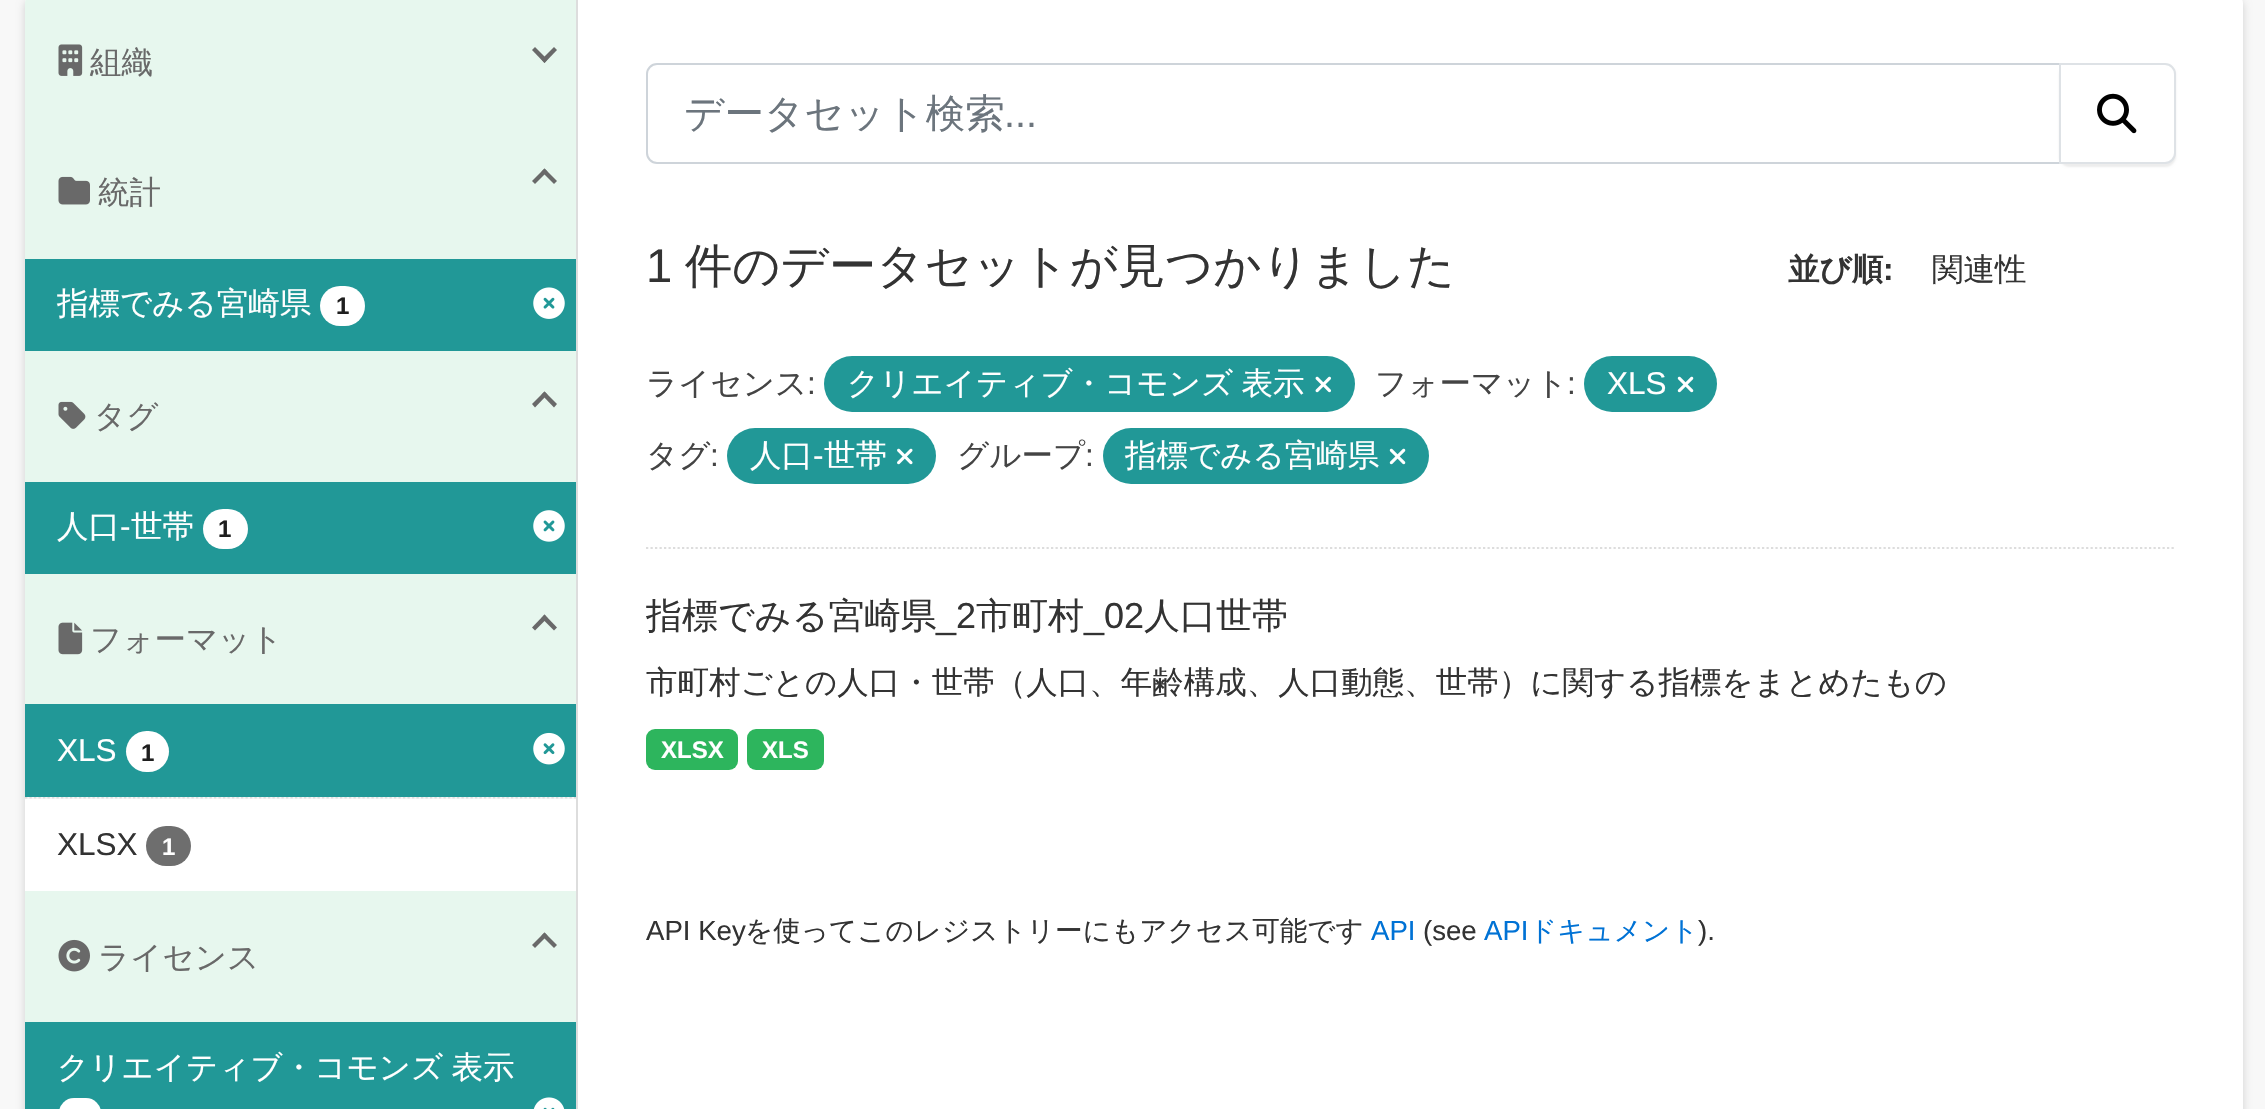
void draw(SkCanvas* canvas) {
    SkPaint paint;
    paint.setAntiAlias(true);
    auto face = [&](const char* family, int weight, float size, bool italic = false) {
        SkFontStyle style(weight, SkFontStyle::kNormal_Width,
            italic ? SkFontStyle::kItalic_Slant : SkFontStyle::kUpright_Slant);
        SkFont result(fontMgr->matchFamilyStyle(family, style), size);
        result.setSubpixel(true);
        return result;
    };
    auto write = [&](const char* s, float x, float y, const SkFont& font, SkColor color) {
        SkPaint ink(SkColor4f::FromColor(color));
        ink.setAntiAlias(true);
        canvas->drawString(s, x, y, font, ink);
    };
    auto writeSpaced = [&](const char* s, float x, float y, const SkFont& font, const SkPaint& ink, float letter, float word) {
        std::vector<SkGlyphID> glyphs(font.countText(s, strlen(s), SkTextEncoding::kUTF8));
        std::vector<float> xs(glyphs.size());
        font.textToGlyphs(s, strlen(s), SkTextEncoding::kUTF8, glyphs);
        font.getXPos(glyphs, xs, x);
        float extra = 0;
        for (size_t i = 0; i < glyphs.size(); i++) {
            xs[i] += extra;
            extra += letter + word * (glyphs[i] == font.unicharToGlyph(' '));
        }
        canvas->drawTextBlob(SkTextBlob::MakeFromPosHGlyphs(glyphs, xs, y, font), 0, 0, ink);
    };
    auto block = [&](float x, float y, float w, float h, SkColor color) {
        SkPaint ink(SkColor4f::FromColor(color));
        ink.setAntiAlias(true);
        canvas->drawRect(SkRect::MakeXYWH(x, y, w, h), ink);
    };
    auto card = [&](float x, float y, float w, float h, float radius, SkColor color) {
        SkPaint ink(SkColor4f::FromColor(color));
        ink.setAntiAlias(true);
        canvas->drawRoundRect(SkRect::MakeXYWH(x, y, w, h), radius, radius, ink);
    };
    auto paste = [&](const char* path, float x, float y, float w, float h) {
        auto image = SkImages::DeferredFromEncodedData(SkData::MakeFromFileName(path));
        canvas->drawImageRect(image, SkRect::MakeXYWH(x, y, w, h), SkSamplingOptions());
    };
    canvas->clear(SkColorSetRGB(248, 248, 248));
    paint.setColor(SkColorSetARGB(41, 0, 0, 0));
    paint.setMaskFilter(SkMaskFilter::MakeBlur(kNormal_SkBlurStyle, 4.5f));
    canvas->drawRoundRect(SkRect::MakeXYWH(25, 0, 2218, 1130), 7, 7, paint);
    paint.setMaskFilter(nullptr);
    card(25, -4, 2218, 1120, 7, SK_ColorWHITE);
    paint.setColor(SkColorSetRGB(231, 247, 238));
    canvas->drawPath(SkPathBuilder().moveTo(32, -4).lineTo(576, -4).lineTo(576, 126).lineTo(25, 126).lineTo(25, 3).cubicTo(25, -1, 28, -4, 32, -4).close().detach(), paint);
    paste("pic1.png", 58, 44, 25, 32);
    auto kFont1 = face("WenQuanYi Zen Hei", 500, 31.5f);
    write("組織", 90, 73, kFont1, SkColorSetRGB(105, 105, 105));
    paint.setColor(SkColorSetRGB(105, 105, 105));
    canvas->drawPath(SkPathBuilder().moveTo(554, 47).lineTo(557, 50).lineTo(544.5f, 63).lineTo(541.5f, 59.5f).close().detach(), paint);
    canvas->drawPath(SkPathBuilder().moveTo(535, 47).lineTo(547.5f, 59.5f).lineTo(544.5f, 63).lineTo(532, 50).close().detach(), paint);
    block(25, 126, 551, 133, SkColorSetRGB(231, 247, 238));
    paste("pic2.png", 58, 176, 32, 29);
    write("統計", 98, 203, kFont1, SkColorSetRGB(105, 105, 105));
    canvas->drawPath(SkPathBuilder().moveTo(544.5f, 168.5f).lineTo(557, 181).lineTo(554, 184).lineTo(541.5f, 171.5f).close().detach(), paint);
    canvas->drawPath(SkPathBuilder().moveTo(544.5f, 168.5f).lineTo(547.5f, 171.5f).lineTo(535, 184).lineTo(532, 181).close().detach(), paint);
    block(25, 259, 551, 92, SkColorSetRGB(33, 152, 151));
    write("指標でみる宮崎県", 57, 314, kFont1, SK_ColorWHITE);
    card(320, 286, 45, 40, 20, SK_ColorWHITE);
    auto kFont2 = face("Liberation Sans", 700, 24);
    write("1", 336, 314, kFont2, SkColorSetRGB(30, 30, 30));
    paste("pic3.png", 533, 287, 32, 32);
    block(25, 351, 551, 131, SkColorSetRGB(231, 247, 238));
    paste("pic4.png", 58, 401, 28, 28);
    write("タグ", 94, 427, kFont1, SkColorSetRGB(105, 105, 105));
    canvas->drawPath(SkPathBuilder().moveTo(544.5f, 391.5f).lineTo(557, 404).lineTo(554, 407.5f).lineTo(541.5f, 394.5f).close().detach(), paint);
    canvas->drawPath(SkPathBuilder().moveTo(544.5f, 391.5f).lineTo(547.5f, 394.5f).lineTo(535, 407.5f).lineTo(532, 404).close().detach(), paint);
    block(25, 482, 551, 92, SkColorSetRGB(33, 152, 151));
    write("人口", 57, 537, kFont1, SK_ColorWHITE);
    auto kFont3 = face("Liberation Sans", 400, 31.5f);
    write("-", 120, 537, kFont3, SK_ColorWHITE);
    write("世帯", 131, 537, kFont1, SK_ColorWHITE);
    card(203, 509, 45, 40, 20, SK_ColorWHITE);
    write("1", 218, 537, kFont2, SkColorSetRGB(30, 30, 30));
    paste("pic5.png", 533, 510, 32, 32);
    block(25, 574, 551, 130, SkColorSetRGB(231, 247, 238));
    paste("pic6.png", 58, 622, 25, 33);
    write("フォーマット", 90, 650, kFont1, SkColorSetRGB(105, 105, 105));
    canvas->drawPath(SkPathBuilder().moveTo(544.5f, 614.5f).lineTo(557, 627.5f).lineTo(554, 630.5f).lineTo(541.5f, 618).close().detach(), paint);
    canvas->drawPath(SkPathBuilder().moveTo(544.5f, 614.5f).lineTo(547.5f, 618).lineTo(535, 630.5f).lineTo(532, 627.5f).close().detach(), paint);
    block(25, 797, 551, 2, SkColorSetRGB(246, 246, 246));
    paint.setStyle(SkPaint::kStroke_Style);
    paint.setStrokeWidth(2.2f);
    paint.setColor(SkColorSetRGB(221, 221, 221));
    paint.setPathEffect(SkDashPathEffect::Make({{2.25f, 2.25f}}, 0));
    canvas->drawPath(SkPathBuilder().moveTo(25, 797.5f).lineTo(576, 797.5f).detach(), paint);
    paint.setPathEffect(nullptr);
    block(25, 704, 551, 93, SkColorSetRGB(33, 152, 151));
    write("XLS", 57, 761, kFont3, SK_ColorWHITE);
    card(126, 731, 43, 41, 20.5f, SK_ColorWHITE);
    write("1", 141, 761, kFont2, SkColorSetRGB(30, 30, 30));
    paste("pic7.png", 533, 732, 32, 33);
    write("XLSX", 57, 855, kFont3, SkColorSetRGB(51, 51, 51));
    card(146, 826, 45, 40, 20, SkColorSetRGB(110, 110, 110));
    write("1", 162, 855, kFont2, SK_ColorWHITE);
    block(25, 891, 551, 131, SkColorSetRGB(231, 247, 238));
    paste("pic8.png", 58, 939, 32, 33);
    write("ライセンス", 98, 968, kFont1, SkColorSetRGB(105, 105, 105));
    paint.setStyle(SkPaint::kFill_Style);
    paint.setColor(SkColorSetRGB(105, 105, 105));
    canvas->drawPath(SkPathBuilder().moveTo(544.5f, 932.5f).lineTo(557, 945).lineTo(554, 948).lineTo(541.5f, 935.5f).close().detach(), paint);
    canvas->drawPath(SkPathBuilder().moveTo(544.5f, 932.5f).lineTo(547.5f, 935.5f).lineTo(535, 948).lineTo(532, 945).close().detach(), paint);
    block(25, 1022, 551, 87, SkColorSetRGB(33, 152, 151));
    paint.setColor(SK_ColorWHITE);
    writeSpaced("クリエイティブ・コモンズ 表示", 57, 1078, kFont1, paint, 0, -1);
    card(59, 1098, 42, 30, 19, SK_ColorWHITE);
    paste("pic9.png", 533, 1097, 32, 12);
    block(576, 0, 2, 1109, SkColorSetRGB(221, 221, 221));
    paint.setStyle(SkPaint::kStroke_Style);
    paint.setColor(SkColorSetRGB(221, 221, 221));
    paint.setPathEffect(SkDashPathEffect::Make({{2.25f, 2.25f}}, 0));
    canvas->drawPath(SkPathBuilder().moveTo(646, 548).lineTo(2176, 548).detach(), paint);
    paint.setPathEffect(nullptr);
    paint.setStrokeWidth(2);
    paint.setColor(SkColorSetRGB(206, 212, 218));
    canvas->drawPath(SkPathBuilder().moveTo(657, 64).lineTo(2060, 64).lineTo(2060, 163).lineTo(657, 163).cubicTo(651.5f, 163, 647, 158.5f, 647, 153).lineTo(647, 74).cubicTo(647, 68.5f, 651.5f, 64, 657, 64).close().detach(), paint);
    auto kFont4 = face("WenQuanYi Zen Hei", 500, 39.5f);
    write("データセット検索", 684, 127, kFont4, SkColorSetRGB(108, 117, 125));
    auto kFont5 = face("Liberation Sans", 400, 39.5f);
    write("...", 1004, 127, kFont5, SkColorSetRGB(108, 117, 125));
    paint.setStyle(SkPaint::kFill_Style);
    paint.setColor(SkColorSetARGB(18, 0, 0, 0));
    paint.setMaskFilter(SkMaskFilter::MakeBlur(kNormal_SkBlurStyle, 1));
    canvas->drawRoundRect(SkRect::MakeXYWH(2059, 65, 117, 102), 11, 11, paint);
    paint.setMaskFilter(nullptr);
    paint.setColor(SK_ColorWHITE);
    canvas->drawPath(SkPathBuilder().moveTo(2060, 64).lineTo(2165, 64).cubicTo(2170.5f, 64, 2175, 68.5f, 2175, 74).lineTo(2175, 153).cubicTo(2175, 158.5f, 2170.5f, 163, 2165, 163).lineTo(2060, 163).close().detach(), paint);
    paint.setStyle(SkPaint::kStroke_Style);
    paint.setColor(SkColorSetRGB(222, 226, 230));
    canvas->drawPath(SkPathBuilder().moveTo(2060, 64).lineTo(2165, 64).cubicTo(2170.5f, 64, 2175, 68.5f, 2175, 74).lineTo(2175, 153).cubicTo(2175, 158.5f, 2170.5f, 163, 2165, 163).lineTo(2060, 163).close().detach(), paint);
    paste("pic10.png", 2097, 93, 40, 41);
    auto kFont6 = face("Liberation Sans", 400, 47.25f);
    write("1", 646, 282, kFont6, SkColorSetRGB(51, 51, 51));
    auto kFont7 = face("WenQuanYi Zen Hei", 500, 47.25f);
    write("件のデータセットが見つかりました", 685, 282, kFont7, SkColorSetRGB(51, 51, 51));
    auto kFont8 = face("WenQuanYi Zen Hei", 700, 31.5f);
    write("並び順", 1788, 280, kFont8, SkColorSetRGB(51, 51, 51));
    auto kFont9 = face("Liberation Sans", 700, 31.5f);
    write(":", 1883, 280, kFont9, SkColorSetRGB(51, 51, 51));
    canvas->save();
    canvas->clipRect(SkRect::MakeXYWH(1933, 248, 160, 47));
    write("関連性", 1932, 280, kFont1, SkColorSetRGB(51, 51, 51));
    canvas->restore();
    write("ライセンス", 646, 394, kFont1, SkColorSetRGB(68, 68, 68));
    write(":", 807, 394, kFont3, SkColorSetRGB(68, 68, 68));
    card(824, 356, 531, 56, 28, SkColorSetRGB(33, 152, 151));
    paint.setStyle(SkPaint::kFill_Style);
    paint.setColor(SK_ColorWHITE);
    writeSpaced("クリエイティブ・コモンズ 表示", 847, 394, kFont1, paint, 0, -1);
    paste("pic11.png", 1315, 376, 16, 17);
    write("フォーマット", 1375, 394, kFont1, SkColorSetRGB(68, 68, 68));
    write(":", 1567, 394, kFont3, SkColorSetRGB(68, 68, 68));
    card(1584, 356, 133, 56, 28, SkColorSetRGB(33, 152, 151));
    write("XLS", 1607, 394, kFont3, SK_ColorWHITE);
    paste("pic12.png", 1677, 376, 17, 17);
    write("タグ", 646, 466, kFont1, SkColorSetRGB(68, 68, 68));
    write(":", 710, 466, kFont3, SkColorSetRGB(68, 68, 68));
    card(727, 428, 209, 56, 28, SkColorSetRGB(33, 152, 151));
    write("人口", 750, 466, kFont1, SK_ColorWHITE);
    write("-", 813, 466, kFont3, SK_ColorWHITE);
    write("世帯", 824, 466, kFont1, SK_ColorWHITE);
    paste("pic13.png", 897, 448, 16, 17);
    write("グループ", 957, 466, kFont1, SkColorSetRGB(68, 68, 68));
    write(":", 1085, 466, kFont3, SkColorSetRGB(68, 68, 68));
    card(1103, 428, 326, 56, 28, SkColorSetRGB(33, 152, 151));
    write("指標でみる宮崎県", 1125, 466, kFont1, SK_ColorWHITE);
    paste("pic12.png", 1389, 448, 17, 17);
    auto kFont10 = face("WenQuanYi Zen Hei", 500, 36);
    write("指標でみる宮崎県", 646, 628, kFont10, SkColorSetRGB(51, 51, 51));
    auto kFont11 = face("Liberation Sans", 400, 36);
    write("_2", 936, 628, kFont11, SkColorSetRGB(51, 51, 51));
    write("市町村", 976, 628, kFont10, SkColorSetRGB(51, 51, 51));
    write("_02", 1084, 628, kFont11, SkColorSetRGB(51, 51, 51));
    write("人口世帯", 1144, 628, kFont10, SkColorSetRGB(51, 51, 51));
    write("市町村ごとの人口・世帯（人口、年齢構成、人口動態、世帯）に関する指標をまとめたもの", 646, 693, kFont1, SkColorSetRGB(51, 51, 51));
    card(646, 729, 92, 41, 9, SkColorSetRGB(45, 181, 93));
    write("XLSX", 661, 758, kFont2, SK_ColorWHITE);
    card(747, 729, 77, 41, 9, SkColorSetRGB(45, 181, 93));
    write("XLS", 762, 758, kFont2, SK_ColorWHITE);
    auto kFont12 = face("Liberation Sans", 400, 27.6f);
    write("API Key", 646, 940, kFont12, SkColorSetRGB(51, 51, 51));
    auto kFont13 = face("WenQuanYi Zen Hei", 500, 27.6f);
    write("を使ってこのレジストリーにもアクセス可能です", 745, 940, kFont13, SkColorSetRGB(51, 51, 51));
    write("API", 1371, 940, kFont12, SkColorSetRGB(0, 114, 213));
    write("(see", 1423, 940, kFont12, SkColorSetRGB(51, 51, 51));
    write("API", 1484, 940, kFont12, SkColorSetRGB(0, 114, 213));
    write("ドキュメント", 1529, 940, kFont13, SkColorSetRGB(0, 114, 213));
    write(").", 1698, 940, kFont12, SkColorSetRGB(51, 51, 51));
}
